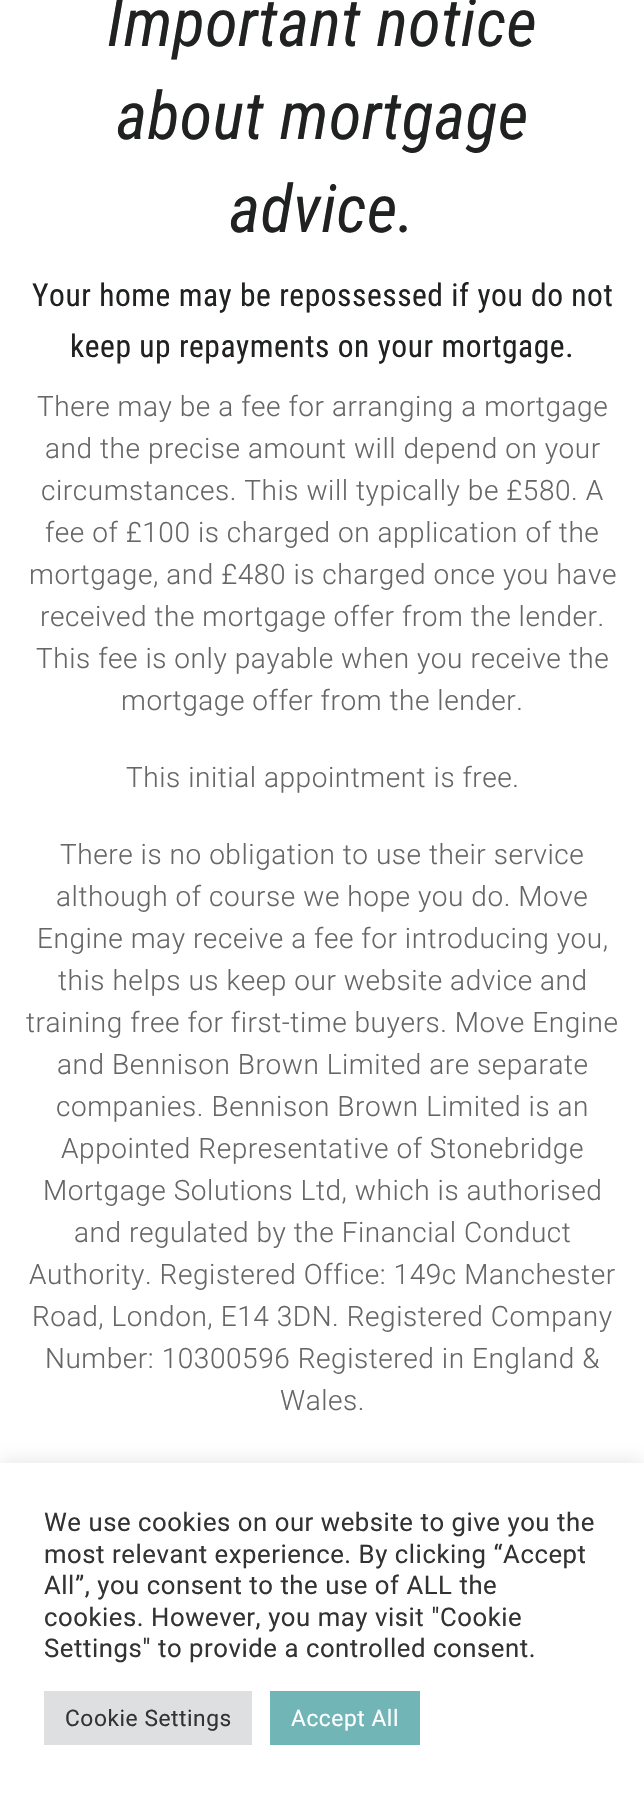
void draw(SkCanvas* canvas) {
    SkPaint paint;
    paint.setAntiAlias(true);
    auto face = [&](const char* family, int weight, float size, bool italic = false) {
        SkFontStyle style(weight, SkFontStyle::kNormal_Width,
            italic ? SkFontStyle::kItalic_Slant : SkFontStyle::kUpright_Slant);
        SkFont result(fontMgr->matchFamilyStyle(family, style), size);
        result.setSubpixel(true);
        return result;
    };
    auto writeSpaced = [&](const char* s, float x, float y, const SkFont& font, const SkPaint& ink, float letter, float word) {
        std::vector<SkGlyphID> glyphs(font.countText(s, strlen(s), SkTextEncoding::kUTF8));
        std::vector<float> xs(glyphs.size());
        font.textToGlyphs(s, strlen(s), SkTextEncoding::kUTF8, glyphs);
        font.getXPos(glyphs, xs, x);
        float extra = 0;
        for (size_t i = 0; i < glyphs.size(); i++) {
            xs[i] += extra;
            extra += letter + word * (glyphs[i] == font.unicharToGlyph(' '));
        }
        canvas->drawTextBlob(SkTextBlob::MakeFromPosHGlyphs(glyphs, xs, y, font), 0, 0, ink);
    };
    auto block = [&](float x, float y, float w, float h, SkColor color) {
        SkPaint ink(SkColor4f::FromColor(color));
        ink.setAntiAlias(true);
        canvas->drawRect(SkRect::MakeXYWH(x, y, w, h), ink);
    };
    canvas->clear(SK_ColorWHITE);
    auto kFont1 = face("Roboto Condensed", 400, 66.5f, true);
    paint.setColor(SkColorSetRGB(32, 33, 33));
    writeSpaced("Important notice", 107, 46, kFont1, paint, 0.55f, 0);
    writeSpaced("about mortgage", 116, 139, kFont1, paint, 0.55f, 0);
    writeSpaced("advice.", 229, 232, kFont1, paint, 0.55f, 0);
    auto kFont2 = face("Roboto Condensed", 400, 31.5f);
    writeSpaced("Your home may be repossessed if you do not", 32, 306, kFont2, paint, 0.55f, 0);
    writeSpaced("keep up repayments on your mortgage.", 70, 357, kFont2, paint, 0.55f, 0);
    auto kFont3 = face("Roboto", 300, 28);
    paint.setColor(SkColorSetRGB(102, 102, 102));
    writeSpaced("There may be a fee for arranging a mortgage", 37, 416, kFont3, paint, 0.55f, 0);
    writeSpaced("and the precise amount will depend on your", 45, 458, kFont3, paint, 0.55f, 0);
    writeSpaced("circumstances. This will typically be £580. A", 41, 500, kFont3, paint, 0.55f, 0);
    writeSpaced("fee of £100 is charged on application of the", 45, 542, kFont3, paint, 0.55f, 0);
    writeSpaced("mortgage, and £480 is charged once you have", 29, 584, kFont3, paint, 0.55f, 0);
    writeSpaced("received the mortgage offer from the lender.", 40, 626, kFont3, paint, 0.55f, 0);
    writeSpaced("This fee is only payable when you receive the", 36, 668, kFont3, paint, 0.55f, 0);
    writeSpaced("mortgage offer from the lender.", 121, 710, kFont3, paint, 0.55f, 0);
    writeSpaced("This initial appointment is free.", 126, 787, kFont3, paint, 0.55f, 0);
    writeSpaced("There is no obligation to use their service", 60, 864, kFont3, paint, 0.55f, 0);
    writeSpaced("although of course we hope you do. Move", 56, 906, kFont3, paint, 0.55f, 0);
    writeSpaced("Engine may receive a fee for introducing you,", 37, 948, kFont3, paint, 0.55f, 0);
    writeSpaced("this helps us keep our website advice and", 58, 990, kFont3, paint, 0.55f, 0);
    writeSpaced("training free for first-time buyers. Move Engine", 26, 1032, kFont3, paint, 0.55f, 0);
    writeSpaced("and Bennison Brown Limited are separate", 57, 1074, kFont3, paint, 0.55f, 0);
    writeSpaced("companies. Bennison Brown Limited is an", 56, 1116, kFont3, paint, 0.55f, 0);
    writeSpaced("Appointed Representative of Stonebridge", 61, 1158, kFont3, paint, 0.55f, 0);
    writeSpaced("Mortgage Solutions Ltd, which is authorised", 43, 1200, kFont3, paint, 0.55f, 0);
    writeSpaced("and regulated by the Financial Conduct", 74, 1242, kFont3, paint, 0.55f, 0);
    writeSpaced("Authority. Registered Office: 149c Manchester", 29, 1284, kFont3, paint, 0.55f, 0);
    writeSpaced("Road, London, E14 3DN. Registered Company", 32, 1326, kFont3, paint, 0.55f, 0);
    writeSpaced("Number: 10300596 Registered in England &", 45, 1368, kFont3, paint, 0.55f, 0);
    writeSpaced("Wales.", 280, 1410, kFont3, paint, 0.55f, 0);
    paint.setColor(SkColorSetARGB(77, 172, 171, 171));
    paint.setMaskFilter(SkMaskFilter::MakeBlur(kNormal_SkBlurStyle, 9));
    canvas->drawRect(SkRect::MakeXYWH(0, 1461, 644, 335), paint);
    paint.setMaskFilter(nullptr);
    block(0, 1463, 644, 333, SK_ColorWHITE);
    auto kFont4 = face("Roboto", 400, 25.7f);
    paint.setColor(SkColorSetRGB(51, 51, 51));
    writeSpaced("We use cookies on our website to give you the", 44, 1531, kFont4, paint, 0.55f, 0);
    writeSpaced("most relevant experience. By clicking “Accept", 44, 1563, kFont4, paint, 0.55f, 0);
    writeSpaced("All”, you consent to the use of ALL the", 44, 1594, kFont4, paint, 0.55f, 0);
    writeSpaced("cookies. However, you may visit \"Cookie", 44, 1626, kFont4, paint, 0.55f, 0);
    writeSpaced("Settings\" to provide a controlled consent.", 44, 1657, kFont4, paint, 0.55f, 0);
    block(44, 1691, 208, 54, SkColorSetRGB(222, 223, 224));
    auto kFont5 = face("Roboto", 400, 22.75f);
    writeSpaced("Cookie Settings", 65, 1726, kFont5, paint, 0.55f, 0);
    block(270, 1691, 150, 54, SkColorSetRGB(113, 181, 183));
    paint.setColor(SK_ColorWHITE);
    writeSpaced("Accept All", 291, 1726, kFont5, paint, 0.55f, 0);
}
